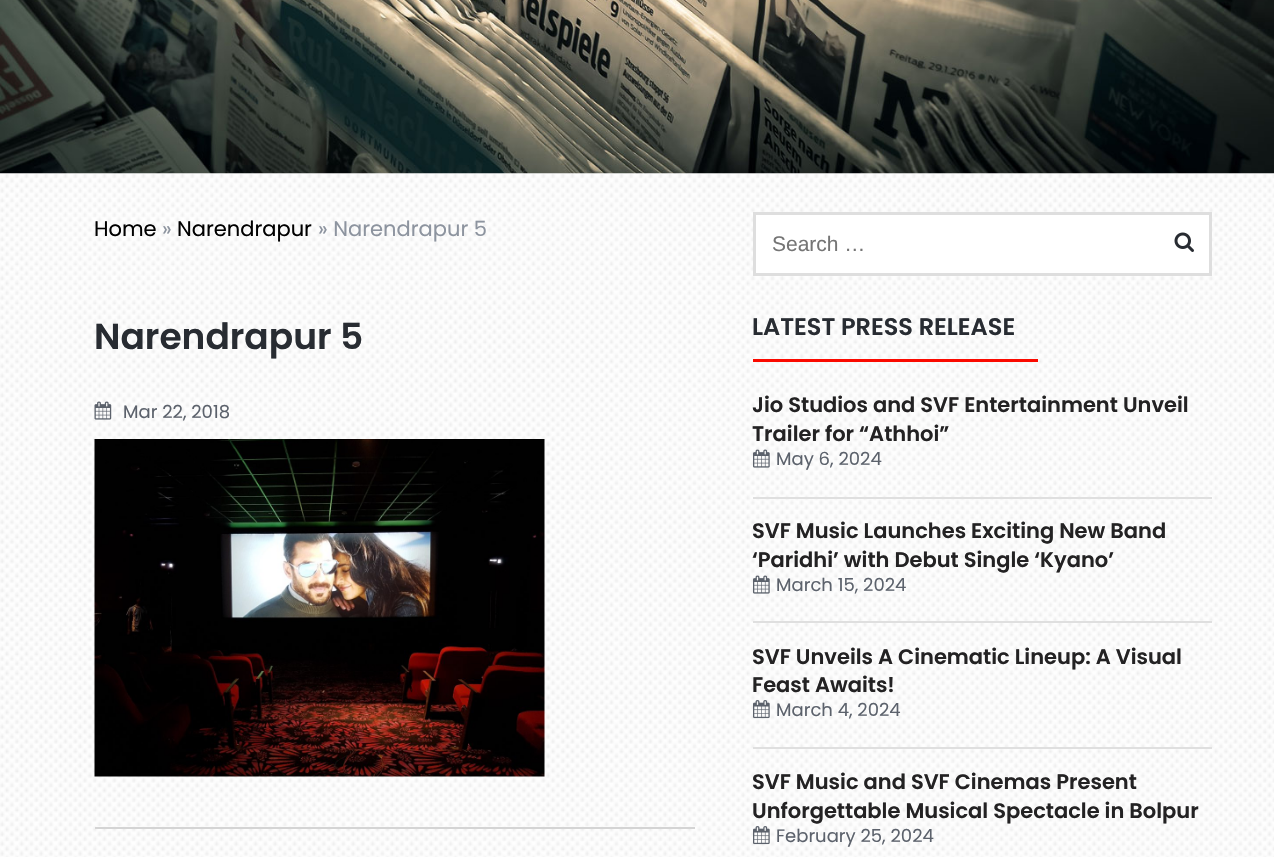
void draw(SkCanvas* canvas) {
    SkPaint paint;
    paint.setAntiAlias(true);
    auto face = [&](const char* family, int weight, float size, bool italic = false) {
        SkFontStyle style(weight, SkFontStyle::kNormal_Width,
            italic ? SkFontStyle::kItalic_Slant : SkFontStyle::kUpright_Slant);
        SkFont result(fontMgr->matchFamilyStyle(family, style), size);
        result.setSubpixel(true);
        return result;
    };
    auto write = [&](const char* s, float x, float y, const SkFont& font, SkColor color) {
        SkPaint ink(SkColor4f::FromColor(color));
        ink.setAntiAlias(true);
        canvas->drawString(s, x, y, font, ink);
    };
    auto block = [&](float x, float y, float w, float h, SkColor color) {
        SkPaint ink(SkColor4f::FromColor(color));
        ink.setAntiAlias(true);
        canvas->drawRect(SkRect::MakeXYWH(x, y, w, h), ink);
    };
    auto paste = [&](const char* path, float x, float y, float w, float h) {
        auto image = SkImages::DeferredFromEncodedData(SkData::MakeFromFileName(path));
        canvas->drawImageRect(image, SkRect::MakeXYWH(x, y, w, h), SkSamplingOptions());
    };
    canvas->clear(SK_ColorWHITE);
    paste("pic1.png", 0, 0, 1274, 174);
    paste("pic2.png", 0, 173, 1274, 684);
    auto kFont1 = face("Poppins", 400, 21);
    write("Home", 94, 236, kFont1, SK_ColorBLACK);
    write("»", 162, 236, kFont1, SkColorSetRGB(141, 148, 159));
    write("Narendrapur", 177, 236, kFont1, SK_ColorBLACK);
    write("» Narendrapur 5", 318, 236, kFont1, SkColorSetRGB(141, 148, 159));
    auto kFont2 = face("Poppins", 600, 36);
    write("Narendrapur 5", 94, 349, kFont2, SkColorSetRGB(40, 44, 50));
    paste("pic3.png", 94, 401, 18, 19);
    auto kFont3 = face("Poppins", 400, 18);
    write("Mar 22, 2018", 123, 418, kFont3, SkColorSetRGB(92, 98, 108));
    paste("pic4.png", 94, 439, 451, 338);
    block(95, 827, 600, 2, SkColorSetRGB(212, 212, 212));
    paint.setColor(SK_ColorWHITE);
    canvas->drawRect(SkRect::MakeXYWH(754.5f, 213.5f, 456, 61), paint);
    paint.setStyle(SkPaint::kStroke_Style);
    paint.setStrokeWidth(3);
    paint.setColor(SkColorSetRGB(222, 222, 222));
    canvas->drawRect(SkRect::MakeXYWH(754.5f, 213.5f, 456, 61), paint);
    auto kFont4 = face("Liberation Sans", 400, 21);
    write("Search …", 772, 251, kFont4, SkColorSetRGB(117, 117, 117));
    paste("pic5.png", 1174, 232, 20, 20);
    auto kFont5 = face("Poppins", 600, 24);
    write("LATEST PRESS RELEASE", 752, 335, kFont5, SkColorSetRGB(40, 44, 50));
    block(753, 359, 285, 3, SkColorSetRGB(251, 10, 0));
    block(753, 497, 459, 2, SkColorSetRGB(223, 223, 223));
    auto kFont6 = face("Poppins", 600, 21);
    write("Jio Studios and SVF Entertainment Unveil", 752, 412, kFont6, SkColorSetRGB(35, 34, 35));
    write("Trailer for “Athhoi”", 752, 441, kFont6, SkColorSetRGB(35, 34, 35));
    paste("pic6.png", 753, 449, 17, 19);
    write("May 6, 2024", 776, 465, kFont3, SkColorSetRGB(92, 98, 108));
    block(753, 621, 459, 2, SkColorSetRGB(223, 223, 223));
    write("SVF Music Launches Exciting New Band", 752, 538, kFont6, SkColorSetRGB(35, 34, 35));
    write("‘Paridhi’ with Debut Single ‘Kyano’", 752, 567, kFont6, SkColorSetRGB(35, 34, 35));
    paste("pic7.png", 753, 575, 17, 19);
    write("March 15, 2024", 776, 591, kFont3, SkColorSetRGB(92, 98, 108));
    block(753, 747, 459, 2, SkColorSetRGB(223, 223, 223));
    write("SVF Unveils A Cinematic Lineup: A Visual", 752, 664, kFont6, SkColorSetRGB(35, 34, 35));
    write("Feast Awaits!", 752, 692, kFont6, SkColorSetRGB(35, 34, 35));
    paste("pic8.png", 753, 700, 17, 19);
    write("March 4, 2024", 776, 716, kFont3, SkColorSetRGB(92, 98, 108));
    write("SVF Music and SVF Cinemas Present", 752, 789, kFont6, SkColorSetRGB(35, 34, 35));
    write("Unforgettable Musical Spectacle in Bolpur", 752, 818, kFont6, SkColorSetRGB(35, 34, 35));
    paste("pic9.png", 753, 826, 17, 19);
    write("February 25, 2024", 776, 842, kFont3, SkColorSetRGB(92, 98, 108));
}
